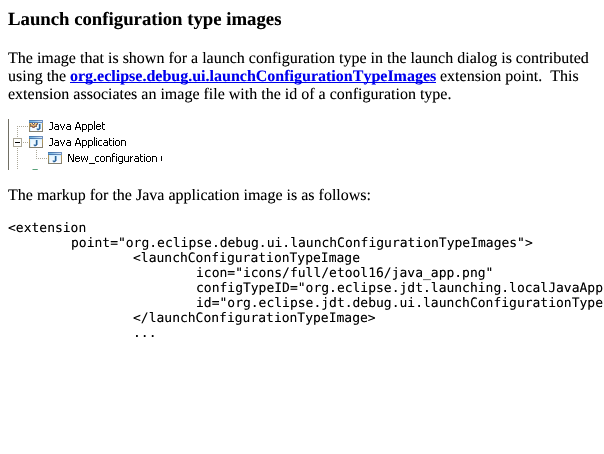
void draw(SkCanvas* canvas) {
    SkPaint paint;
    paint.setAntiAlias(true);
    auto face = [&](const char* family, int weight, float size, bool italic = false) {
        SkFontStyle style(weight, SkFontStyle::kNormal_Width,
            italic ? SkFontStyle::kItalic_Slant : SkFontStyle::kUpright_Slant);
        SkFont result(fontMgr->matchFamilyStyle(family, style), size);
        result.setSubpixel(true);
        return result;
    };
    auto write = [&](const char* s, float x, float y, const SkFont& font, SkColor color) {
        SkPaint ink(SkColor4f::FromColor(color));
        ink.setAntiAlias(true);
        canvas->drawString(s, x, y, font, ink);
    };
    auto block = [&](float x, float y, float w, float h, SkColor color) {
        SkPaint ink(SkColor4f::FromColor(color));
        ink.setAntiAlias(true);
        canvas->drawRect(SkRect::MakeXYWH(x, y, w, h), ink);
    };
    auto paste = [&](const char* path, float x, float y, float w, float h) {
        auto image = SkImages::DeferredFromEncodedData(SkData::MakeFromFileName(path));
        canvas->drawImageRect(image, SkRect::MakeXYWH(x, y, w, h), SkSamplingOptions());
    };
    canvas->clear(SK_ColorWHITE);
    auto kFont1 = face("Liberation Serif", 700, 18.75f);
    write("Launch configuration type images", 8, 25, kFont1, SK_ColorBLACK);
    auto kFont2 = face("Liberation Serif", 400, 16);
    write("The image that is shown for a launch configuration type in the launch dialog is contributed", 8, 63, kFont2, SK_ColorBLACK);
    write("using the", 8, 81, kFont2, SK_ColorBLACK);
    block(70, 82, 366, 1, SkColorSetRGB(0, 0, 238));
    auto kFont3 = face("Liberation Serif", 700, 16);
    write("org.eclipse.debug.ui.launchConfigurationTypeImages", 70, 81, kFont3, SkColorSetRGB(0, 0, 238));
    write("extension point.  This", 440, 81, kFont2, SK_ColorBLACK);
    write("extension associates an image file with the id of a configuration type.", 8, 99, kFont2, SK_ColorBLACK);
    paste("pic1.png", 8, 119, 154, 51);
    write("The markup for the Java application image is as follows:", 8, 200, kFont2, SK_ColorBLACK);
    auto kFont4 = face("DejaVu Sans Mono", 400, 13);
    write("<extension", 8, 232, kFont4, SK_ColorBLACK);
    write("point=\"org.eclipse.debug.ui.launchConfigurationTypeImages\">", 71, 247, kFont4, SK_ColorBLACK);
    write("<launchConfigurationTypeImage", 133, 262, kFont4, SK_ColorBLACK);
    write("icon=\"icons/full/etool16/java_app.png\"", 196, 277, kFont4, SK_ColorBLACK);
    write("configTypeID=\"org.eclipse.jdt.launching.localJavaApp", 196, 292, kFont4, SK_ColorBLACK);
    write("id=\"org.eclipse.jdt.debug.ui.launchConfigurationType", 196, 307, kFont4, SK_ColorBLACK);
    write("</launchConfigurationTypeImage>", 133, 322, kFont4, SK_ColorBLACK);
    write("...", 133, 337, kFont4, SK_ColorBLACK);
}
